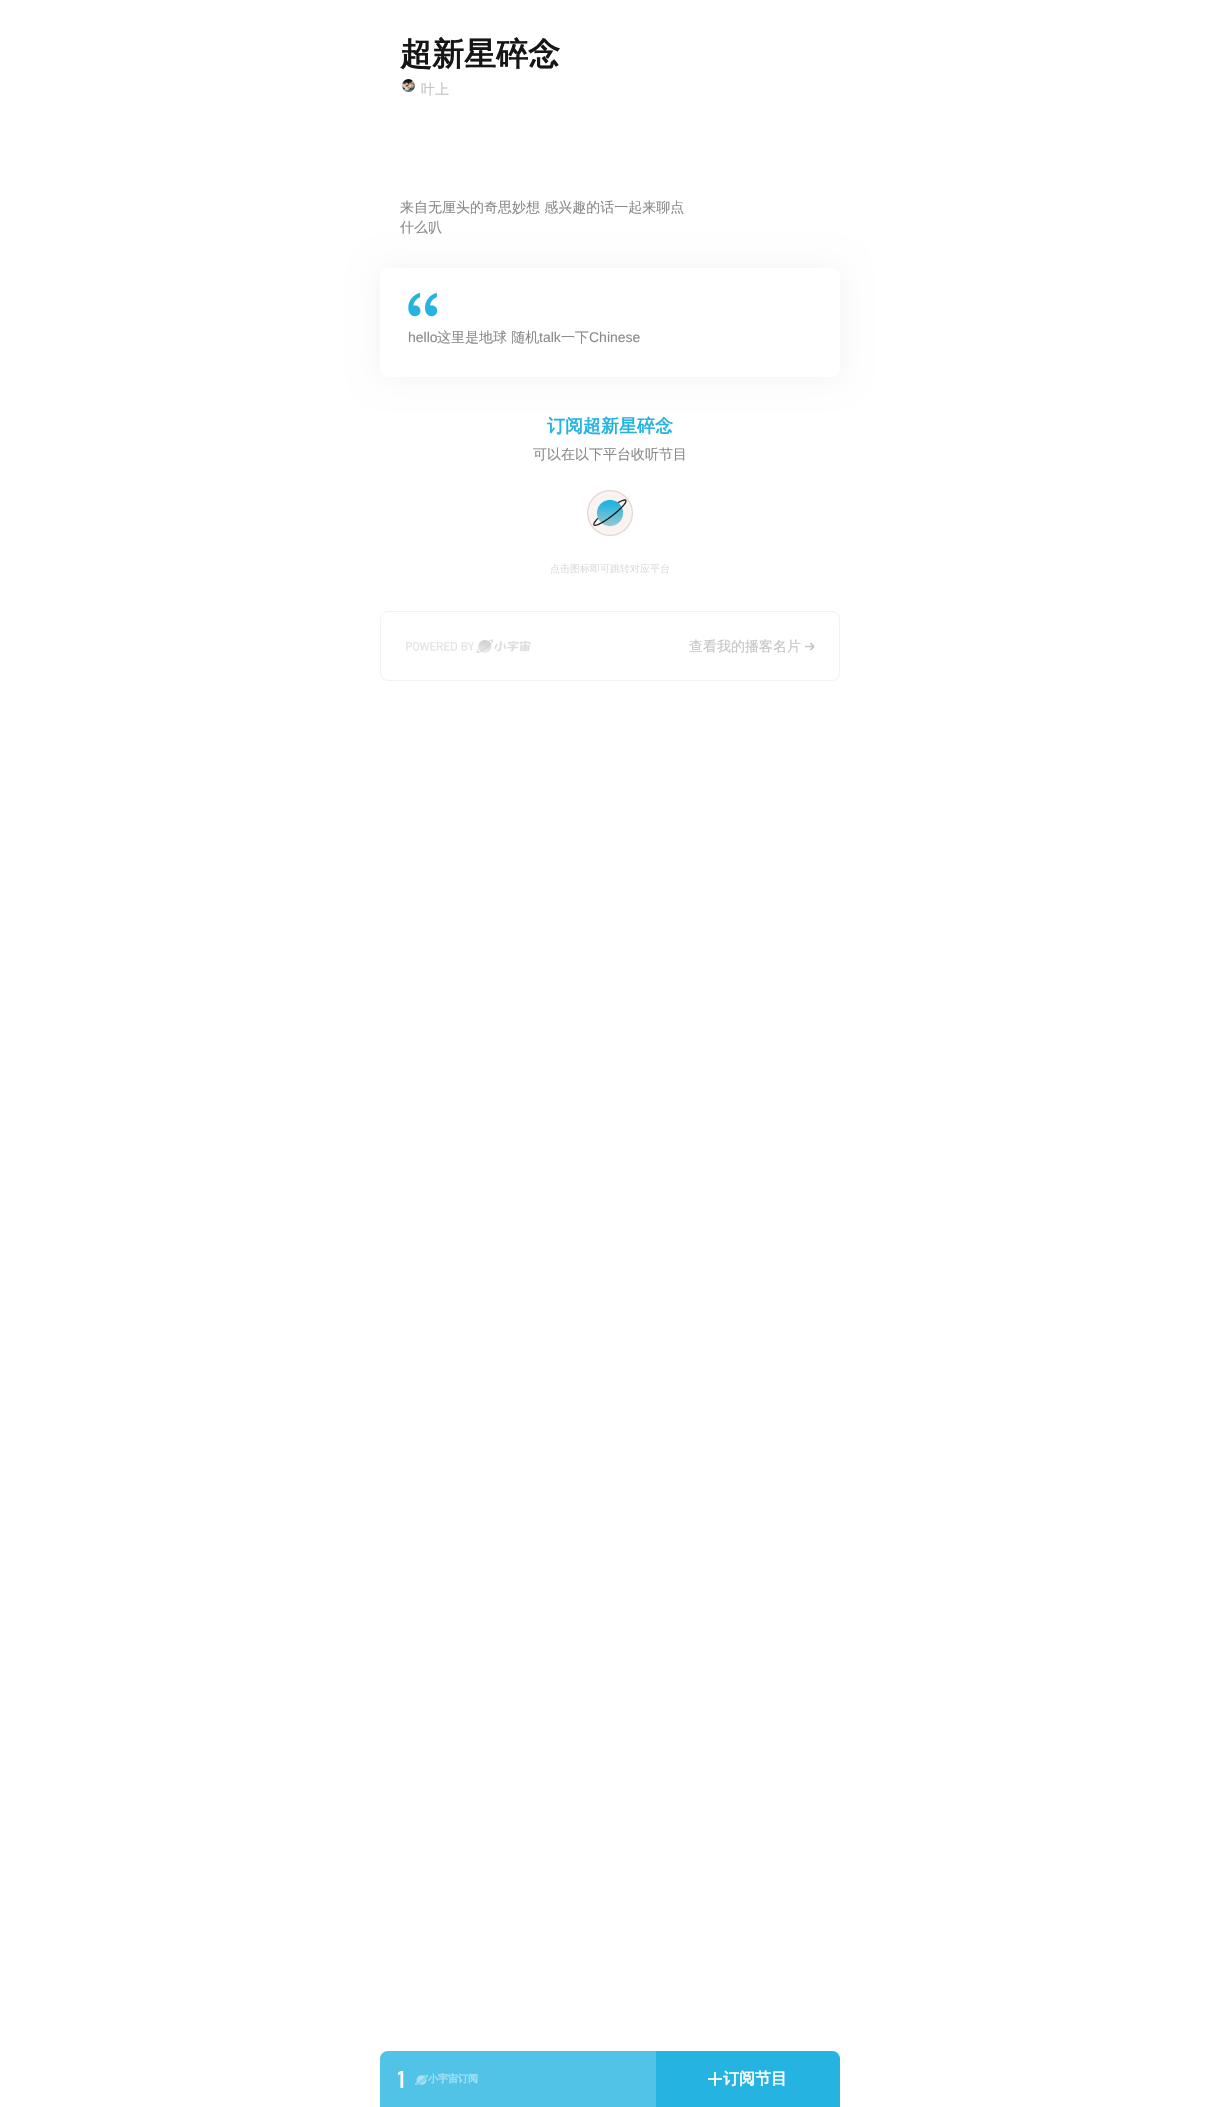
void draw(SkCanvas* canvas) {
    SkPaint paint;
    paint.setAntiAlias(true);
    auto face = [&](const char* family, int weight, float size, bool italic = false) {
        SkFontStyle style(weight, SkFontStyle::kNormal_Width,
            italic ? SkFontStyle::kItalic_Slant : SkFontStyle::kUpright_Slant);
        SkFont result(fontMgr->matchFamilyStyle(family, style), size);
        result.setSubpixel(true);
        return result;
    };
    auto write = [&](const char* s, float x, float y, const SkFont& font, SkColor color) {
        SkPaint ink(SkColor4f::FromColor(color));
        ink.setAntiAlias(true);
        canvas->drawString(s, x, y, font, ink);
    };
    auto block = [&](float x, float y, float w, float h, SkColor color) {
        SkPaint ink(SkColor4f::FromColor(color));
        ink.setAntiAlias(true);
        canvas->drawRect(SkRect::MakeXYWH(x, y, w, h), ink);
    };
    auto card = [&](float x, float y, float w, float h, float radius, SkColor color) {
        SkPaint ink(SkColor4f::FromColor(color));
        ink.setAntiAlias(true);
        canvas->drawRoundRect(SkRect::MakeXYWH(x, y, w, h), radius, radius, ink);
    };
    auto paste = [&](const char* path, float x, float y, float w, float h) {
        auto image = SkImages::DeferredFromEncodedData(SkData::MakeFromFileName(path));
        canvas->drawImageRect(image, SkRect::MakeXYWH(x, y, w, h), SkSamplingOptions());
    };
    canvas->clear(SK_ColorWHITE);
    auto kFont1 = face("WenQuanYi Zen Hei", 700, 32);
    write("超新星碎念", 400, 65, kFont1, SkColorSetRGB(22, 21, 23));
    paste("pic1.png", 402, 79, 13, 13);
    auto kFont2 = face("WenQuanYi Zen Hei", 500, 14);
    write("叶上", 421, 94, kFont2, SkColorSetRGB(197, 197, 199));
    write("来自无厘头的奇思妙想 感兴趣的话一起来聊点", 400, 212, kFont2, SkColorSetRGB(138, 138, 142));
    paint.setColor(SkColorSetARGB(13, 0, 0, 0));
    paint.setMaskFilter(SkMaskFilter::MakeBlur(kNormal_SkBlurStyle, 15));
    canvas->drawRoundRect(SkRect::MakeXYWH(380, 268, 460, 109), 8, 8, paint);
    paint.setMaskFilter(nullptr);
    write("什么叭", 400, 232, kFont2, SkColorSetRGB(138, 138, 142));
    card(380, 268, 460, 109, 8, SK_ColorWHITE);
    paste("pic2.png", 408, 292, 30, 25);
    auto kFont3 = face("Liberation Sans", 400, 14);
    write("hello", 408, 342, kFont3, SkColorSetRGB(138, 138, 142));
    write("这里是地球 随机", 437, 342, kFont2, SkColorSetRGB(138, 138, 142));
    write("talk", 539, 342, kFont3, SkColorSetRGB(138, 138, 142));
    write("一下", 561, 342, kFont2, SkColorSetRGB(138, 138, 142));
    write("Chinese", 589, 342, kFont3, SkColorSetRGB(138, 138, 142));
    auto kFont4 = face("WenQuanYi Zen Hei", 700, 18);
    write("订阅超新星碎念", 547, 432, kFont4, SkColorSetRGB(37, 180, 225));
    write("可以在以下平台收听节目", 533, 459, kFont2, SkColorSetRGB(138, 138, 142));
    paste("pic3.png", 587, 490, 46, 46);
    auto kFont5 = face("WenQuanYi Zen Hei", 500, 10);
    write("点击图标即可跳转对应平台", 550, 572, kFont5, SkColorSetRGB(220, 220, 221));
    paint.setStyle(SkPaint::kStroke_Style);
    paint.setStrokeWidth(1);
    paint.setColor(SkColorSetRGB(242, 242, 242));
    canvas->drawRoundRect(SkRect::MakeXYWH(380.5f, 611.5f, 459, 69), 7.5f, 7.5f, paint);
    paste("pic4.png", 406, 639, 125, 14);
    write("查看我的播客名片", 689, 651, kFont2, SkColorSetRGB(197, 197, 199));
    paste("pic5.png", 805, 642, 10, 9);
    paint.setStyle(SkPaint::kFill_Style);
    paint.setColor(SkColorSetRGB(37, 180, 225));
    canvas->drawPath(SkPathBuilder().moveTo(388, 2051).lineTo(832, 2051).cubicTo(836.5f, 2051, 840, 2054.5f, 840, 2059).lineTo(840, 2107).lineTo(380, 2107).lineTo(380, 2059).cubicTo(380, 2054.5f, 383.5f, 2051, 388, 2051).close().detach(), paint);
    block(708, 2078, 14, 2, SkColorSetRGB(233, 248, 252));
    block(380, 2051, 276, 56, SkColorSetARGB(51, 255, 255, 255));
    auto kFont6 = face("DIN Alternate", 700, 24);
    write("1", 396, 2088, kFont6, SK_ColorWHITE);
    paste("pic6.png", 415, 2074, 13, 11);
    auto kFont7 = face("WenQuanYi Zen Hei", 700, 10);
    write("小宇宙订阅", 428, 2082, kFont7, SkColorSetRGB(168, 225, 243));
    block(714, 2072, 2, 14, SkColorSetRGB(233, 248, 252));
    block(714, 2078, 2, 2, SkColorSetRGB(253, 254, 255));
    auto kFont8 = face("WenQuanYi Zen Hei", 700, 16);
    write("订阅节目", 723, 2084, kFont8, SK_ColorWHITE);
}
